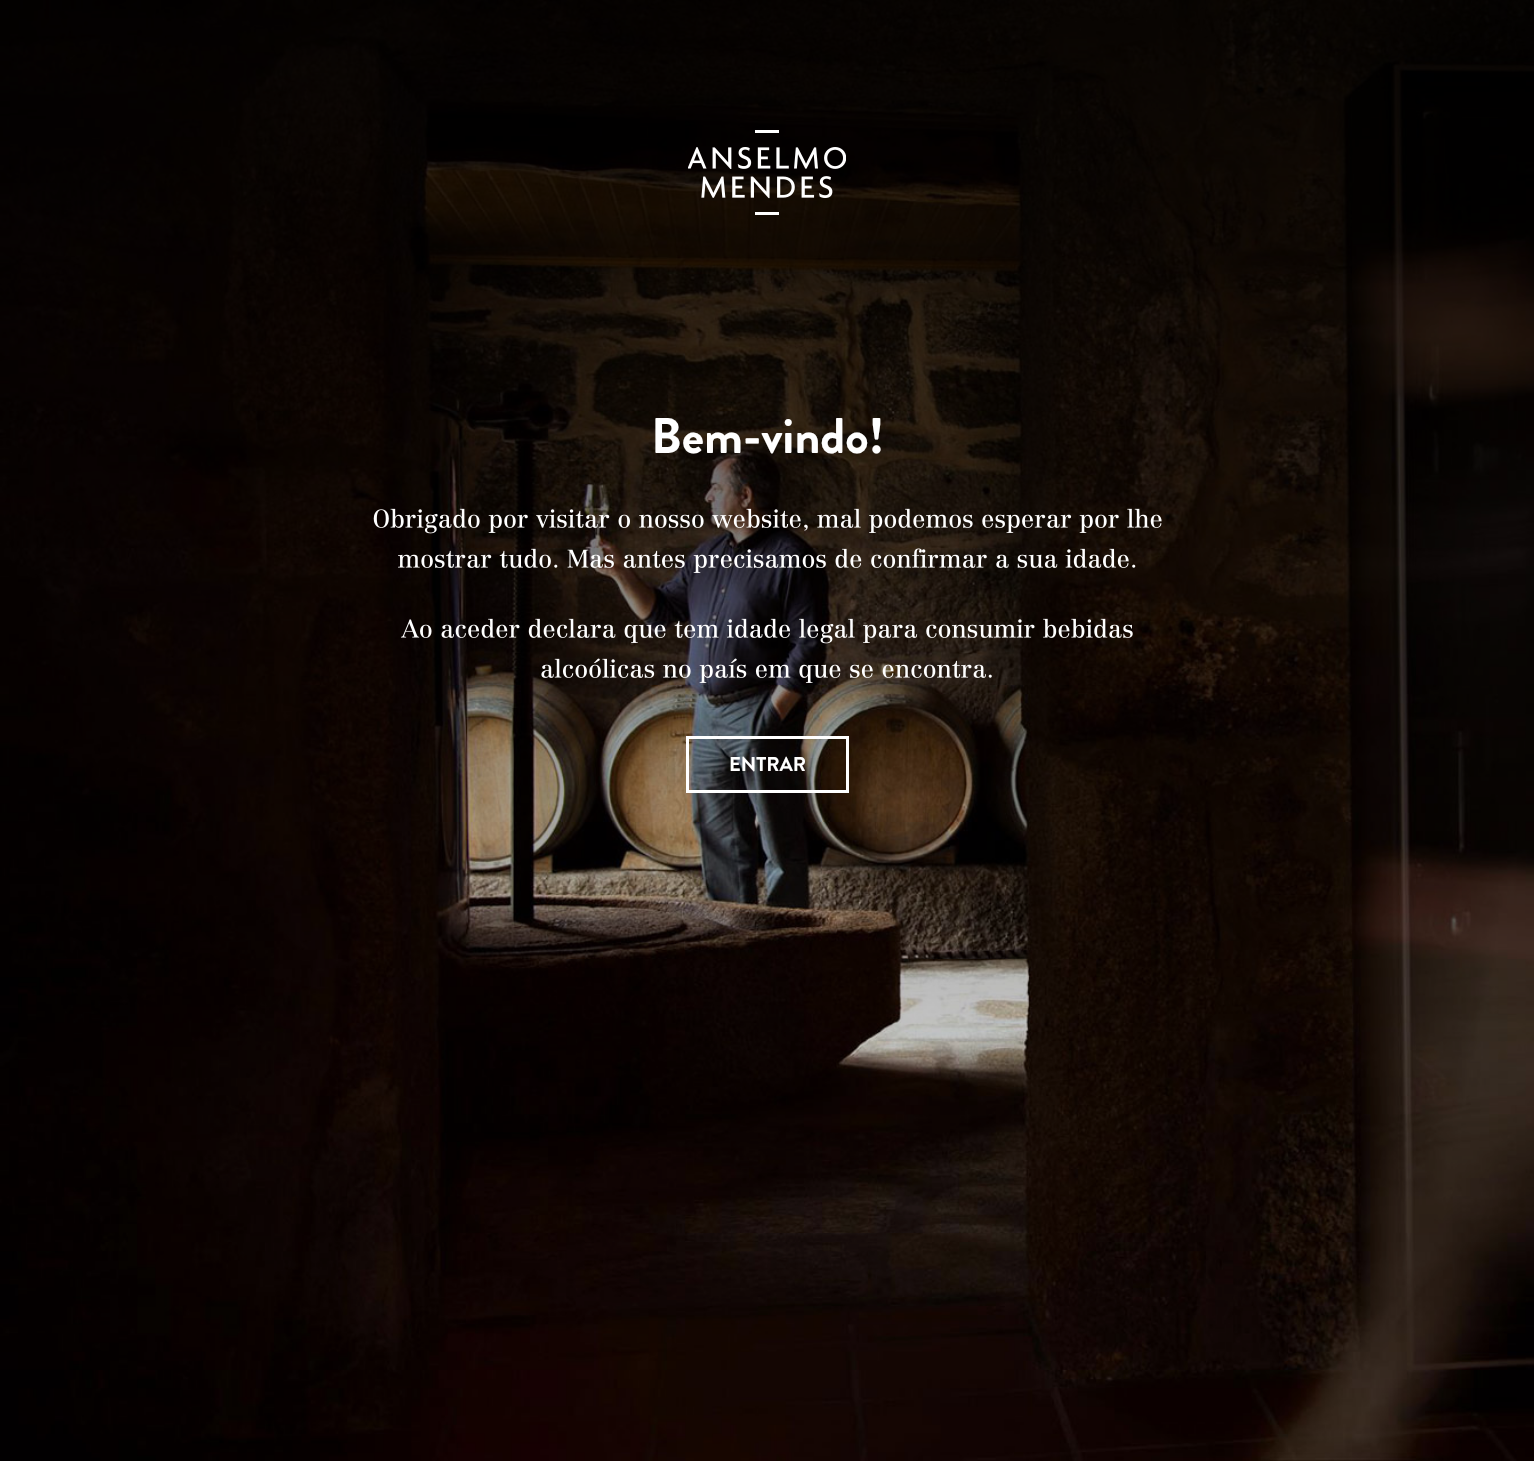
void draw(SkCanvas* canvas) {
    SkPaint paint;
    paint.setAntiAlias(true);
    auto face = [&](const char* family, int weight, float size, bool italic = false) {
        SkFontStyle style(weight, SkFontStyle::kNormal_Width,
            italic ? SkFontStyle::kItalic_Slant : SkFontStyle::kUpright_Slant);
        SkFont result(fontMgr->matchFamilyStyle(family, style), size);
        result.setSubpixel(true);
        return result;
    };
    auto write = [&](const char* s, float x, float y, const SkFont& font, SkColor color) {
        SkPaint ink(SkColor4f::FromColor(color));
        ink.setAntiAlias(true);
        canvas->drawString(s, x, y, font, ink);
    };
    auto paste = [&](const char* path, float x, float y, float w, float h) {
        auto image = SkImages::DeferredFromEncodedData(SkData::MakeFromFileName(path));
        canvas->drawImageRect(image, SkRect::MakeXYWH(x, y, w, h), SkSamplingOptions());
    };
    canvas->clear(SK_ColorWHITE);
    paste("pic1.png", 0, 0, 1534, 1461);
    paste("pic2.png", 688, 130, 158, 85);
    auto kFont1 = face("Brandon Grotesque", 700, 50);
    write("Bem-vindo!", 651, 453, kFont1, SK_ColorWHITE);
    paste("pic3.png", 373, 508, 789, 26);
    paste("pic4.png", 398, 548, 738, 25);
    paste("pic5.png", 401, 618, 732, 26);
    paste("pic6.png", 541, 658, 451, 25);
    paint.setStyle(SkPaint::kStroke_Style);
    paint.setStrokeWidth(3);
    paint.setColor(SK_ColorWHITE);
    canvas->drawRect(SkRect::MakeXYWH(687.5f, 737.5f, 160, 54), paint);
    auto kFont2 = face("Brandon Grotesque", 700, 20);
    write("ENTRAR", 729, 771, kFont2, SK_ColorWHITE);
}
